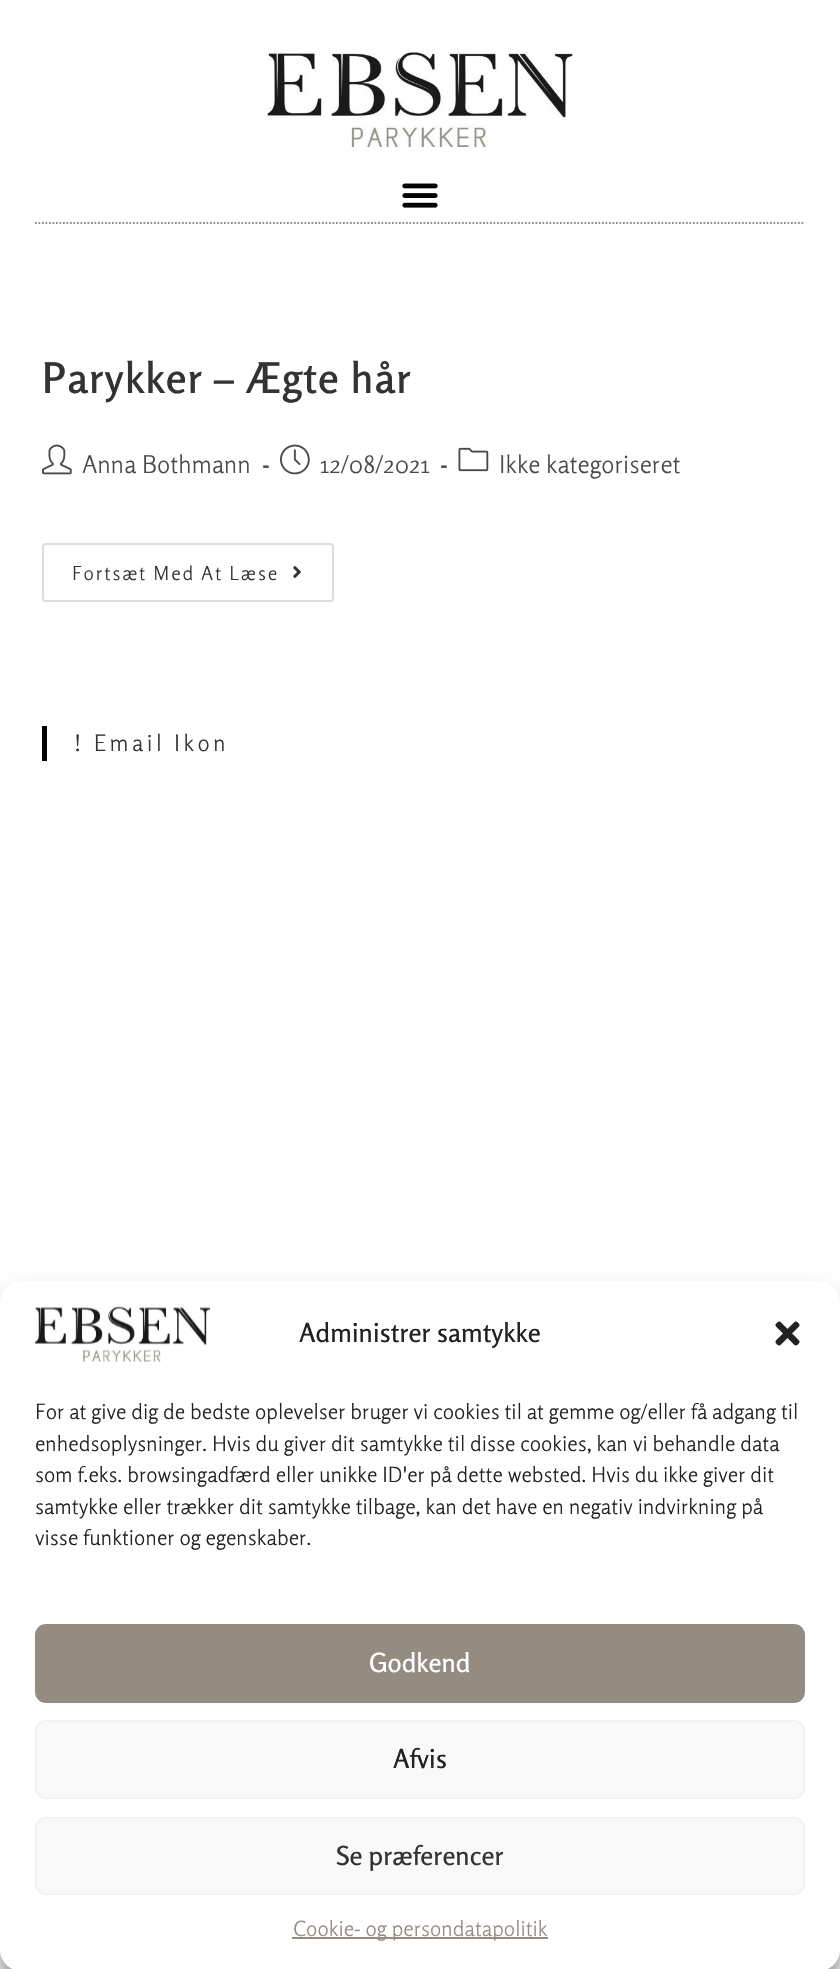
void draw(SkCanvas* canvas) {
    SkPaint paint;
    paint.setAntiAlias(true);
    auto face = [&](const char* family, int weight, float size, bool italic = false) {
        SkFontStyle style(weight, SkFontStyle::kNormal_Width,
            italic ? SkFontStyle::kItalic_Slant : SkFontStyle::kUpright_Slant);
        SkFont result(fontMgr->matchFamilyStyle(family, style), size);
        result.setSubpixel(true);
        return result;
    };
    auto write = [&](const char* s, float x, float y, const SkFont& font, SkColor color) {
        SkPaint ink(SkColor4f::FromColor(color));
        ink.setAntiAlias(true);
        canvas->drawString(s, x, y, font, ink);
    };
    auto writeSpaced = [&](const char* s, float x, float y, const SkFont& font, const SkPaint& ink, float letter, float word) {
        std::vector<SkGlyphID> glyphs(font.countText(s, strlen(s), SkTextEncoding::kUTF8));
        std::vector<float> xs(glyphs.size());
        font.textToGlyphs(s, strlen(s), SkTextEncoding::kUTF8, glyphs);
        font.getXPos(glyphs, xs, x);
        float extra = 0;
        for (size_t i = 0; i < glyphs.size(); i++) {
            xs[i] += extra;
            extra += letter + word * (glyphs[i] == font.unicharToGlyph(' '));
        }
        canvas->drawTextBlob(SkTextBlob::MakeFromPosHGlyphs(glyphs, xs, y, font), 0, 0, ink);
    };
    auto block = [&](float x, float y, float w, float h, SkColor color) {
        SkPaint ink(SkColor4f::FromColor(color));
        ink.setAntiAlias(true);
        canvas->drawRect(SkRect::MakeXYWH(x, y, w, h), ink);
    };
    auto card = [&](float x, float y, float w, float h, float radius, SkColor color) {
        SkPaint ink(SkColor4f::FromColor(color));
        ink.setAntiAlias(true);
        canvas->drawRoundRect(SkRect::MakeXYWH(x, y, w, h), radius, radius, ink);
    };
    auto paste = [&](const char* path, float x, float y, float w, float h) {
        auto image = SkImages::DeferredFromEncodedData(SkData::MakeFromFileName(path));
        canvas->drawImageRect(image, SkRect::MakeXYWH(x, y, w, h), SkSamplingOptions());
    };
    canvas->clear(SK_ColorWHITE);
    paste("pic1.png", 267, 52, 306, 95);
    paint.setStyle(SkPaint::kStroke_Style);
    paint.setStrokeWidth(1.8f);
    paint.setColor(SkColorSetRGB(142, 142, 142));
    paint.setPathEffect(SkDashPathEffect::Make({{1.75f, 1.75f}}, 0));
    canvas->drawPath(SkPathBuilder().moveTo(35, 223).lineTo(805, 223).detach(), paint);
    paint.setPathEffect(nullptr);
    paste("pic2.png", 402, 183, 36, 25);
    auto kFont1 = face("Rosario", 600, 42);
    paint.setStyle(SkPaint::kFill_Style);
    paint.setColor(SkColorSetRGB(51, 51, 51));
    writeSpaced("Parykker – Ægte hår", 42, 393, kFont1, paint, 1, 0);
    paste("pic3.png", 42, 444, 30, 31);
    auto kFont2 = face("Rosario", 300, 24.5f);
    write("Anna Bothmann", 82, 473, kFont2, SkColorSetRGB(74, 74, 74));
    auto kFont3 = face("Rosario", 700, 24.5f);
    write("-", 262, 473, kFont3, SkColorSetRGB(74, 74, 74));
    paste("pic4.png", 280, 444, 30, 31);
    write("12/08/2021", 320, 473, kFont2, SkColorSetRGB(74, 74, 74));
    write("-", 440, 473, kFont3, SkColorSetRGB(74, 74, 74));
    paste("pic5.png", 458, 447, 31, 25);
    write("Ikke kategoriseret", 499, 473, kFont2, SkColorSetRGB(74, 74, 74));
    paint.setStyle(SkPaint::kStroke_Style);
    paint.setStrokeWidth(2);
    paint.setColor(SkColorSetRGB(221, 221, 221));
    canvas->drawRoundRect(SkRect::MakeXYWH(43, 544, 290, 57), 3, 3, paint);
    auto kFont4 = face("Rosario", 300, 19.25f);
    paint.setStyle(SkPaint::kFill_Style);
    paint.setColor(SkColorSetRGB(51, 51, 51));
    writeSpaced("Fortsæt Med At Læse", 72, 580, kFont4, paint, 1.75f, 0);
    paste("pic6.png", 293, 566, 8, 12);
    block(42, 726, 5, 35, SK_ColorBLACK);
    auto kFont5 = face("Rosario", 300, 22.75f);
    writeSpaced("! Email Ikon", 74, 751, kFont5, paint, 3.5f, 0);
    block(0, 1950, 840, 19, SkColorSetRGB(248, 248, 248));
    paint.setColor(SkColorSetARGB(59, 0, 0, 0));
    paint.setMaskFilter(SkMaskFilter::MakeBlur(kNormal_SkBlurStyle, 5));
    canvas->drawRoundRect(SkRect::MakeXYWH(0, 1292, 840, 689), 21, 21, paint);
    paint.setMaskFilter(nullptr);
    paint.setColor(SkColorSetARGB(48, 0, 0, 0));
    paint.setMaskFilter(SkMaskFilter::MakeBlur(kNormal_SkBlurStyle, 17.5f));
    canvas->drawRoundRect(SkRect::MakeXYWH(0, 1299, 840, 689), 21, 21, paint);
    paint.setMaskFilter(nullptr);
    card(0, 1281, 840, 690, 21, SK_ColorWHITE);
    paste("pic7.png", 35, 1306, 175, 56);
    auto kFont6 = face("Rosario", 500, 26.25f);
    write("Administrer samtykke", 299, 1342, kFont6, SkColorSetRGB(34, 34, 34));
    paste("pic8.png", 775, 1321, 25, 25);
    auto kFont7 = face("Rosario", 300, 21);
    write("For at give dig de bedste oplevelser bruger vi cookies til at gemme og/eller få adgang til", 35, 1419, kFont7, SkColorSetRGB(34, 34, 34));
    write("enhedsoplysninger. Hvis du giver dit samtykke til disse cookies, kan vi behandle data", 35, 1451, kFont7, SkColorSetRGB(34, 34, 34));
    write("som f.eks. browsingadfærd eller unikke ID'er på dette websted. Hvis du ikke giver dit", 35, 1482, kFont7, SkColorSetRGB(34, 34, 34));
    write("samtykke eller trækker dit samtykke tilbage, kan det have en negativ indvirkning på", 35, 1514, kFont7, SkColorSetRGB(34, 34, 34));
    write("visse funktioner og egenskaber.", 35, 1545, kFont7, SkColorSetRGB(34, 34, 34));
    paint.setColor(SkColorSetRGB(148, 140, 129));
    canvas->drawRoundRect(SkRect::MakeXYWH(36, 1625, 768, 77), 10, 10, paint);
    paint.setStyle(SkPaint::kStroke_Style);
    canvas->drawRoundRect(SkRect::MakeXYWH(36, 1625, 768, 77), 10, 10, paint);
    write("Godkend", 369, 1672, kFont6, SK_ColorWHITE);
    paint.setStyle(SkPaint::kFill_Style);
    paint.setColor(SkColorSetRGB(249, 249, 249));
    canvas->drawRoundRect(SkRect::MakeXYWH(36, 1721, 768, 77), 10, 10, paint);
    paint.setStyle(SkPaint::kStroke_Style);
    paint.setColor(SkColorSetRGB(242, 242, 242));
    canvas->drawRoundRect(SkRect::MakeXYWH(36, 1721, 768, 77), 10, 10, paint);
    write("Afvis", 393, 1768, kFont6, SkColorSetRGB(34, 34, 34));
    paint.setStyle(SkPaint::kFill_Style);
    paint.setColor(SkColorSetRGB(249, 249, 249));
    canvas->drawRoundRect(SkRect::MakeXYWH(36, 1818, 768, 76), 10, 10, paint);
    paint.setStyle(SkPaint::kStroke_Style);
    paint.setColor(SkColorSetRGB(242, 242, 242));
    canvas->drawRoundRect(SkRect::MakeXYWH(36, 1818, 768, 76), 10, 10, paint);
    write("Se præferencer", 336, 1865, kFont6, SkColorSetRGB(51, 51, 51));
    block(292, 1937, 256, 2, SkColorSetRGB(148, 140, 129));
    write("Cookie- og persondatapolitik", 293, 1936, kFont7, SkColorSetRGB(148, 140, 129));
}
